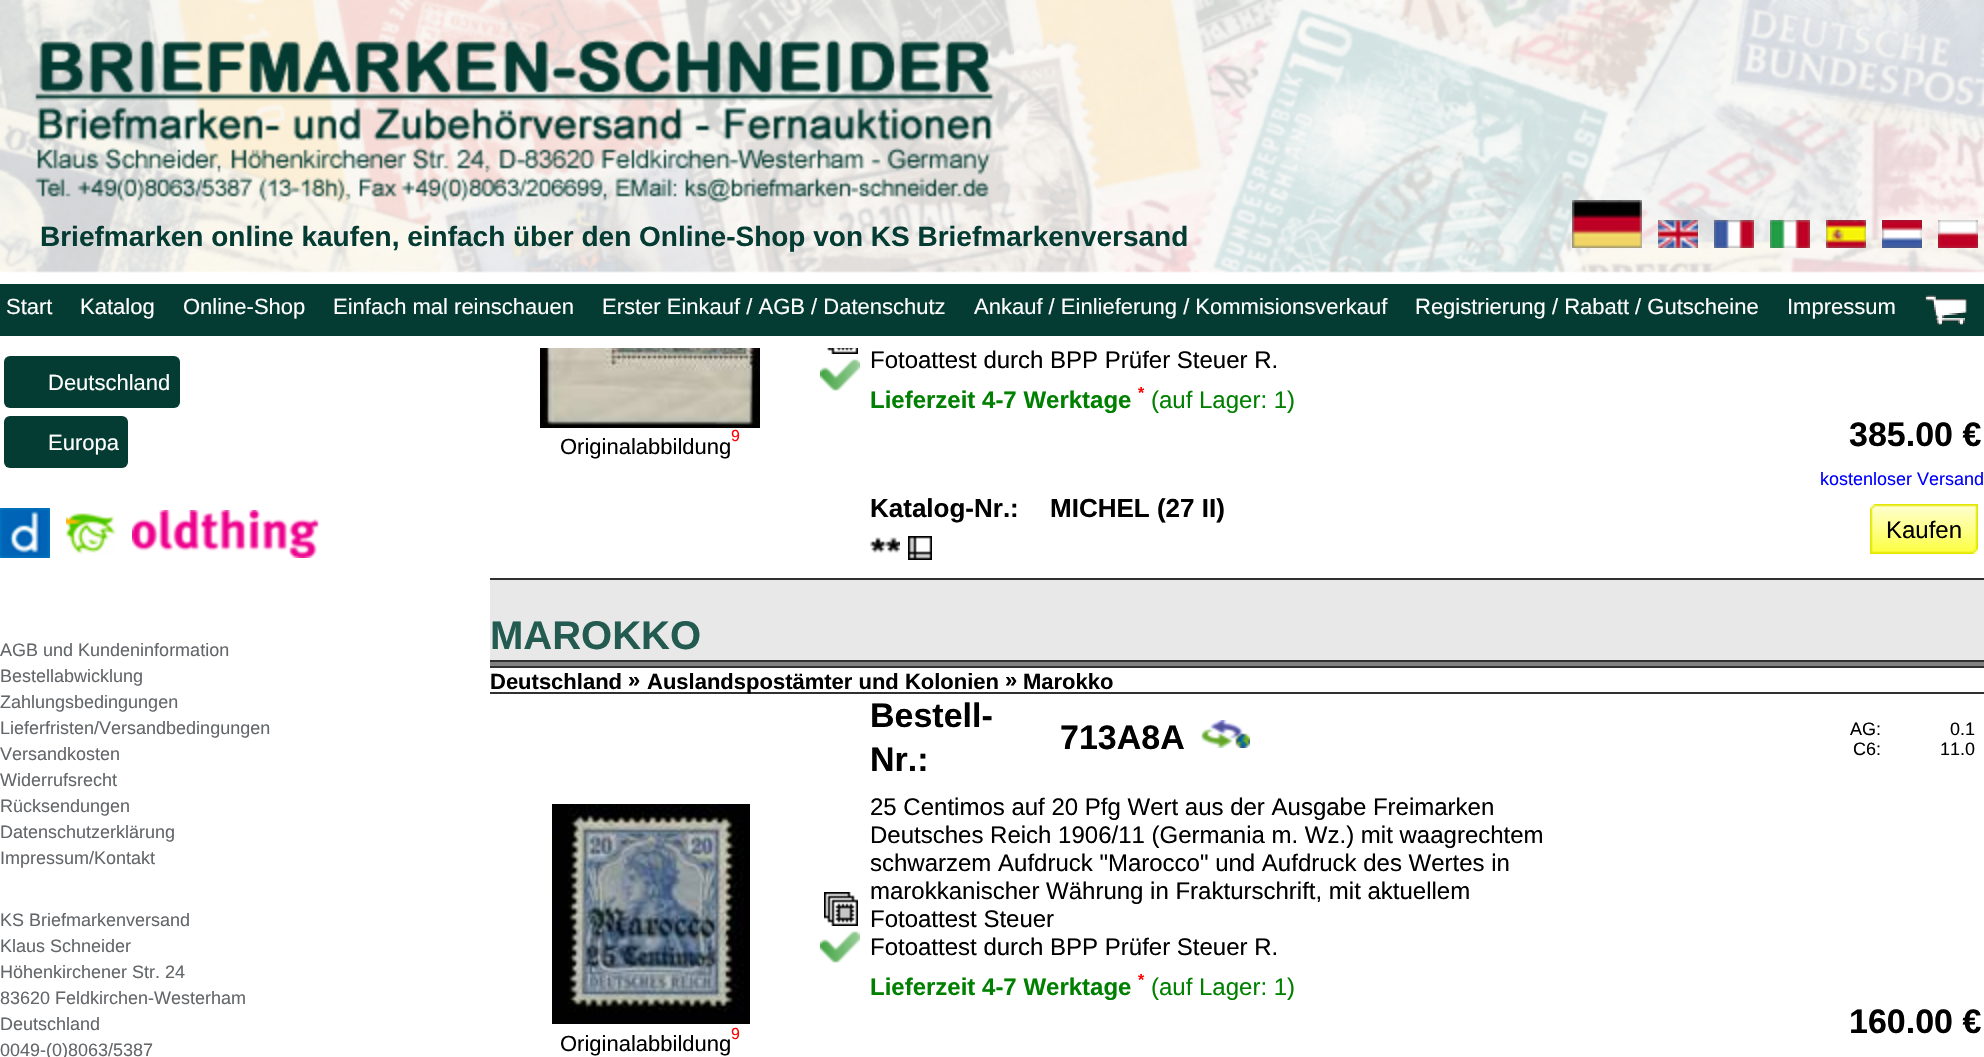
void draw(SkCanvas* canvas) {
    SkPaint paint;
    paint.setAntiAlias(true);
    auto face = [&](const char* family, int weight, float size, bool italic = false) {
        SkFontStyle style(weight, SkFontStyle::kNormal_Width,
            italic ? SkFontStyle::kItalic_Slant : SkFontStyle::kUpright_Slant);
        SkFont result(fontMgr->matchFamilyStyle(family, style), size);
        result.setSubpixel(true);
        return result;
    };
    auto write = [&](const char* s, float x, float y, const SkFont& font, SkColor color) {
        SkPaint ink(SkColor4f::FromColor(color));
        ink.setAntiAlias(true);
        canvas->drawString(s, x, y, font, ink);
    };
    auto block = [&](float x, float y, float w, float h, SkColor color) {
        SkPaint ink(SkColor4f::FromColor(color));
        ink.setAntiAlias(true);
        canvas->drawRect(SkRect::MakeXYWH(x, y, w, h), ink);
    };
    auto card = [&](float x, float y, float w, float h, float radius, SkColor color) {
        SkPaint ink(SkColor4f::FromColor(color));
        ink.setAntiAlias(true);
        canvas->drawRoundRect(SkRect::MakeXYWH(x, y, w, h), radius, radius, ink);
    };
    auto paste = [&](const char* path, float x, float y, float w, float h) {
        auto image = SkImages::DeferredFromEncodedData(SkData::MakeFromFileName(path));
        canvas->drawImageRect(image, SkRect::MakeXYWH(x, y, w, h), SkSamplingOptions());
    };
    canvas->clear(SK_ColorWHITE);
    paste("pic1.png", 0, 0, 1984, 273);
    auto kFont1 = face("Liberation Sans", 700, 28);
    write("Briefmarken online kaufen, einfach über den Online-Shop von KS Briefmarkenversand", 40, 246, kFont1, SkColorSetRGB(4, 59, 50));
    paste("pic2.png", 1572, 200, 70, 48);
    paste("pic3.png", 1658, 220, 40, 28);
    paste("pic4.png", 1714, 220, 40, 28);
    paste("pic5.png", 1770, 220, 40, 28);
    paste("pic6.png", 1826, 220, 40, 28);
    paste("pic7.png", 1882, 220, 40, 28);
    paste("pic8.png", 1938, 220, 40, 28);
    block(0, 284, 1984, 52, SkColorSetRGB(4, 59, 50));
    auto kFont2 = face("Liberation Sans", 400, 22);
    write("Start", 6, 314, kFont2, SK_ColorWHITE);
    write("Katalog", 80, 314, kFont2, SK_ColorWHITE);
    write("Online-Shop", 183, 314, kFont2, SK_ColorWHITE);
    write("Einfach mal reinschauen", 333, 314, kFont2, SK_ColorWHITE);
    write("Erster Einkauf / AGB / Datenschutz", 602, 314, kFont2, SK_ColorWHITE);
    write("Ankauf / Einlieferung / Kommisionsverkauf", 974, 314, kFont2, SK_ColorWHITE);
    write("Registrierung / Rabatt / Gutscheine", 1415, 314, kFont2, SK_ColorWHITE);
    write("Impressum", 1787, 314, kFont2, SK_ColorWHITE);
    paste("pic9.png", 1925, 295, 42, 30);
    card(4, 356, 176, 52, 6, SkColorSetRGB(4, 59, 50));
    write("Deutschland", 48, 390, kFont2, SK_ColorWHITE);
    card(4, 416, 124, 52, 6, SkColorSetRGB(4, 59, 50));
    write("Europa", 48, 450, kFont2, SK_ColorWHITE);
    paste("pic10.png", 0, 508, 50, 50);
    paste("pic11.png", 66, 513, 50, 42);
    paste("pic12.png", 132, 510, 187, 48);
    auto kFont3 = face("Liberation Sans", 400, 18);
    write("AGB und Kundeninformation", 0, 656, kFont3, SkColorSetRGB(100, 103, 106));
    write("Bestellabwicklung", 0, 682, kFont3, SkColorSetRGB(100, 103, 106));
    write("Zahlungsbedingungen", 0, 708, kFont3, SkColorSetRGB(100, 103, 106));
    write("Lieferfristen/Versandbedingungen", 0, 734, kFont3, SkColorSetRGB(100, 103, 106));
    write("Versandkosten", 0, 760, kFont3, SkColorSetRGB(100, 103, 106));
    write("Widerrufsrecht", 0, 786, kFont3, SkColorSetRGB(100, 103, 106));
    write("Rücksendungen", 0, 812, kFont3, SkColorSetRGB(100, 103, 106));
    write("Datenschutzerklärung", 0, 838, kFont3, SkColorSetRGB(100, 103, 106));
    write("Impressum/Kontakt", 0, 864, kFont3, SkColorSetRGB(100, 103, 106));
    write("KS Briefmarkenversand", 0, 926, kFont3, SkColorSetRGB(100, 103, 106));
    write("Klaus Schneider", 0, 952, kFont3, SkColorSetRGB(100, 103, 106));
    write("Höhenkirchener Str. 24", 0, 978, kFont3, SkColorSetRGB(100, 103, 106));
    write("83620 Feldkirchen-Westerham", 0, 1004, kFont3, SkColorSetRGB(100, 103, 106));
    write("Deutschland", 0, 1030, kFont3, SkColorSetRGB(100, 103, 106));
    write("0049-(0)8063/5387", 0, 1056, kFont3, SkColorSetRGB(100, 103, 106));
    block(490, 578, 1494, 2, SkColorSetRGB(48, 48, 48));
    paste("pic13.png", 540, 348, 220, 80);
    auto kFont4 = face("Liberation Sans", 400, 16);
    write("9", 731, 441, kFont4, SkColorSetRGB(255, 0, 0));
    write("Originalabbildung", 560, 454, kFont2, SK_ColorBLACK);
    paste("pic14.png", 827, 348, 31, 6);
    paste("pic15.png", 820, 359, 40, 32);
    auto kFont5 = face("Liberation Sans", 400, 24);
    write("Fotoattest durch BPP Prüfer Steuer R.", 870, 368, kFont5, SK_ColorBLACK);
    auto kFont6 = face("Liberation Sans", 700, 24);
    write("Lieferzeit 4-7 Werktage", 870, 408, kFont6, SkColorSetRGB(0, 128, 0));
    auto kFont7 = face("Liberation Sans", 700, 16);
    write("*", 1138, 398, kFont7, SkColorSetRGB(255, 0, 0));
    write("(auf Lager: 1)", 1151, 408, kFont5, SkColorSetRGB(0, 128, 0));
    auto kFont8 = face("Liberation Sans", 700, 34);
    write("385.00 €", 1849, 446, kFont8, SK_ColorBLACK);
    write("kostenloser Versand", 1820, 485, kFont3, SkColorSetRGB(0, 0, 255));
    auto kFont9 = face("Liberation Sans", 700, 26);
    write("Katalog-Nr.:", 870, 517, kFont9, SK_ColorBLACK);
    write("MICHEL (27 II)", 1050, 517, kFont9, SK_ColorBLACK);
    paste("pic16.png", 870, 537, 30, 16);
    paste("pic17.png", 908, 536, 24, 24);
    paste("pic18.png", 1972, 504, 6, 50);
    paste("pic19.png", 1870, 504, 102, 50);
    write("Kaufen", 1886, 538, kFont5, SK_ColorBLACK);
    block(490, 580, 1494, 80, SkColorSetRGB(232, 232, 232));
    auto kFont10 = face("Liberation Sans", 700, 40);
    write("MAROKKO", 490, 649, kFont10, SkColorSetRGB(35, 91, 81));
    block(490, 662, 1494, 4, SkColorSetRGB(128, 128, 128));
    block(490, 660, 1494, 2, SkColorSetRGB(48, 48, 48));
    block(490, 666, 1494, 2, SkColorSetRGB(48, 48, 48));
    auto kFont11 = face("Liberation Sans", 700, 22);
    write("Deutschland", 490, 689, kFont11, SK_ColorBLACK);
    write("»", 628, 687, kFont11, SK_ColorBLACK);
    block(490, 692, 1494, 2, SkColorSetRGB(48, 48, 48));
    write("Auslandspostämter und Kolonien", 647, 689, kFont11, SK_ColorBLACK);
    write("»", 1005, 687, kFont11, SK_ColorBLACK);
    write("Marokko", 1023, 689, kFont11, SK_ColorBLACK);
    paste("pic20.png", 824, 892, 34, 34);
    paste("pic15.png", 820, 931, 40, 32);
    write("Bestell-", 870, 727, kFont8, SK_ColorBLACK);
    write("Nr.:", 870, 771, kFont8, SK_ColorBLACK);
    write("713A8A", 1060, 749, kFont8, SK_ColorBLACK);
    paste("pic21.png", 1201, 720, 49, 28);
    write("AG:", 1850, 735, kFont3, SK_ColorBLACK);
    write("C6:", 1853, 755, kFont3, SK_ColorBLACK);
    write("0.1", 1950, 735, kFont3, SK_ColorBLACK);
    write("11.0", 1940, 755, kFont3, SK_ColorBLACK);
    write("25 Centimos auf 20 Pfg Wert aus der Ausgabe Freimarken", 870, 815, kFont5, SK_ColorBLACK);
    write("Deutsches Reich 1906/11 (Germania m. Wz.) mit waagrechtem", 870, 843, kFont5, SK_ColorBLACK);
    write("schwarzem Aufdruck \"Marocco\" und Aufdruck des Wertes in", 870, 871, kFont5, SK_ColorBLACK);
    write("marokkanischer Währung in Frakturschrift, mit aktuellem", 870, 899, kFont5, SK_ColorBLACK);
    write("Fotoattest Steuer", 870, 927, kFont5, SK_ColorBLACK);
    write("Fotoattest durch BPP Prüfer Steuer R.", 870, 955, kFont5, SK_ColorBLACK);
    write("Lieferzeit 4-7 Werktage", 870, 995, kFont6, SkColorSetRGB(0, 128, 0));
    write("*", 1138, 985, kFont7, SkColorSetRGB(255, 0, 0));
    write("(auf Lager: 1)", 1151, 995, kFont5, SkColorSetRGB(0, 128, 0));
    write("160.00 €", 1849, 1033, kFont8, SK_ColorBLACK);
    paste("pic22.png", 552, 804, 198, 220);
    write("9", 731, 1039, kFont4, SkColorSetRGB(255, 0, 0));
    write("Originalabbildung", 560, 1051, kFont2, SK_ColorBLACK);
}
